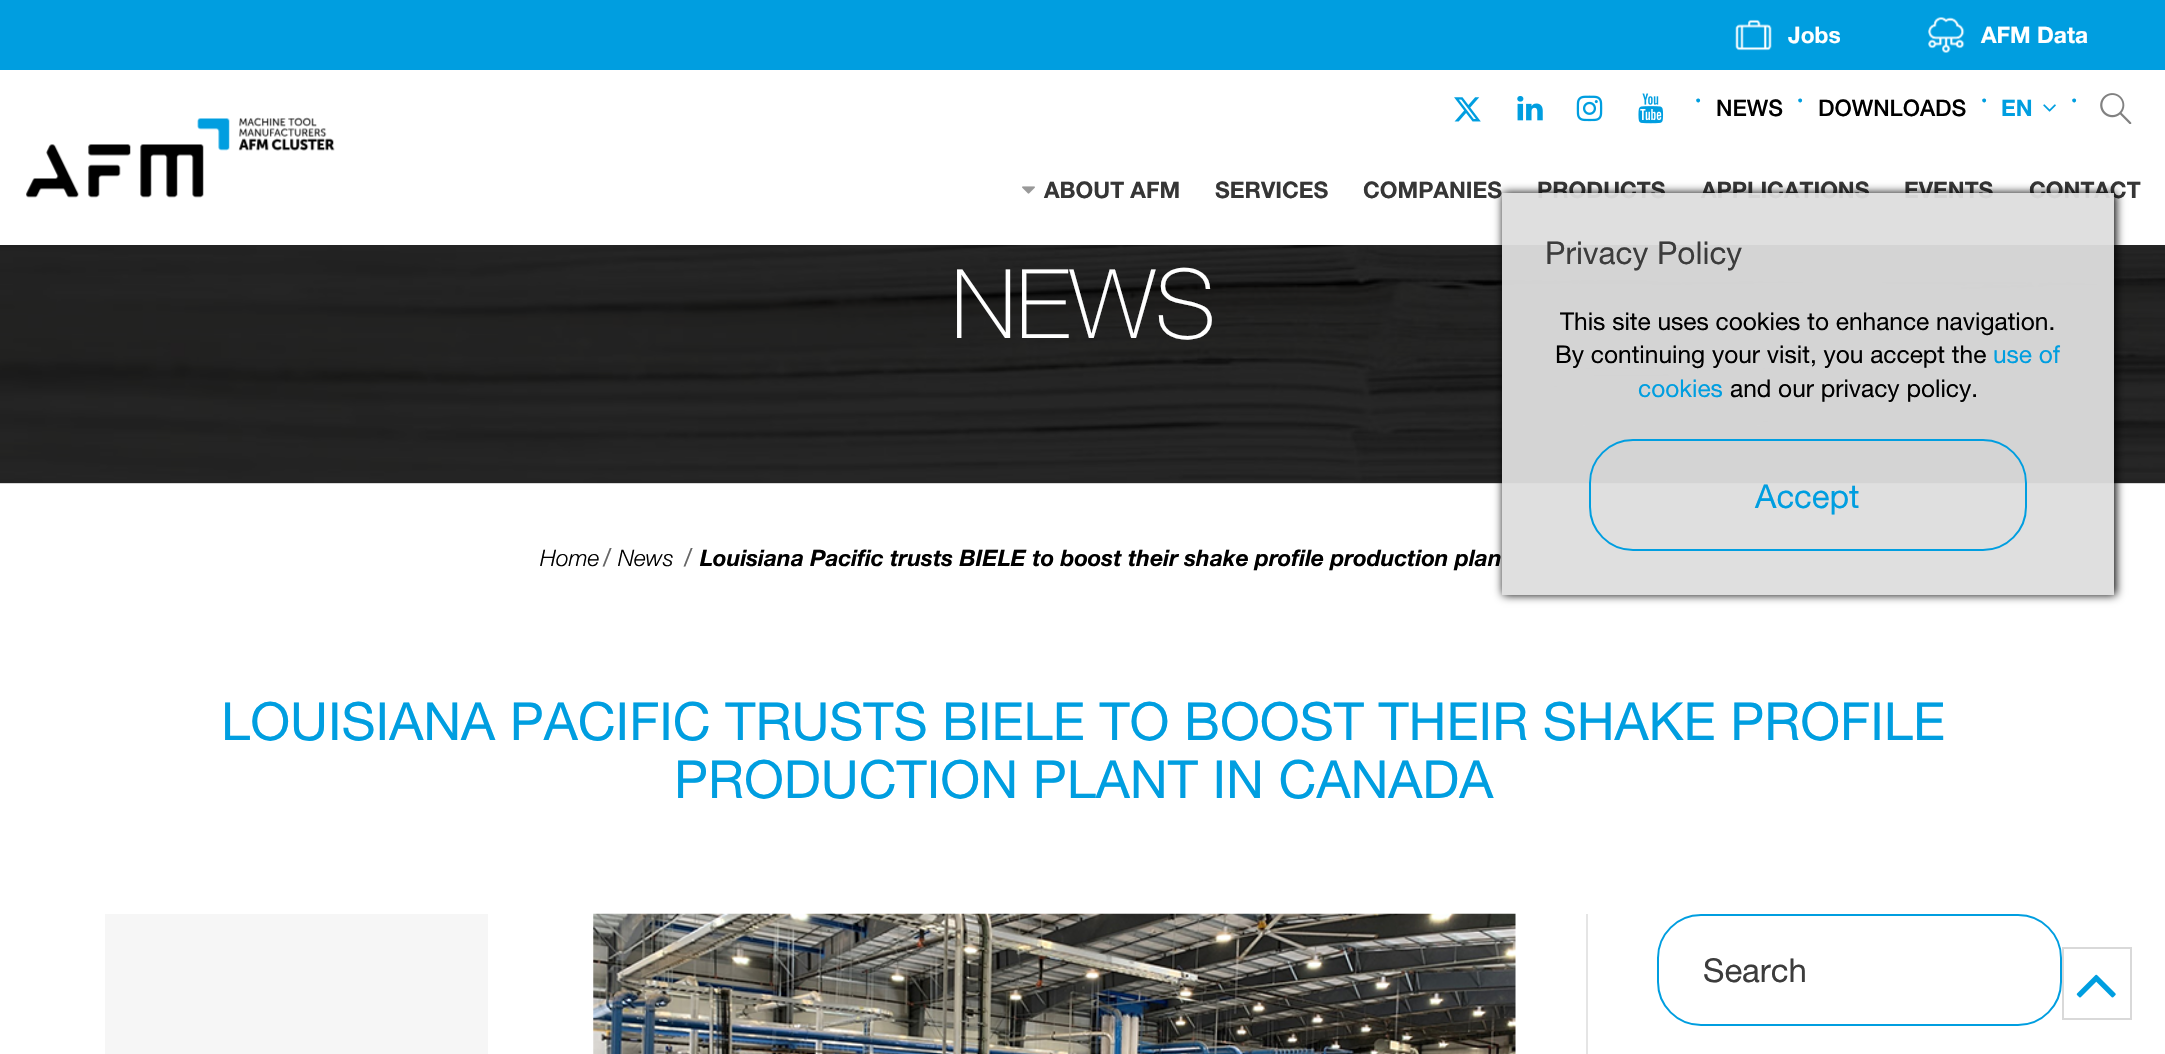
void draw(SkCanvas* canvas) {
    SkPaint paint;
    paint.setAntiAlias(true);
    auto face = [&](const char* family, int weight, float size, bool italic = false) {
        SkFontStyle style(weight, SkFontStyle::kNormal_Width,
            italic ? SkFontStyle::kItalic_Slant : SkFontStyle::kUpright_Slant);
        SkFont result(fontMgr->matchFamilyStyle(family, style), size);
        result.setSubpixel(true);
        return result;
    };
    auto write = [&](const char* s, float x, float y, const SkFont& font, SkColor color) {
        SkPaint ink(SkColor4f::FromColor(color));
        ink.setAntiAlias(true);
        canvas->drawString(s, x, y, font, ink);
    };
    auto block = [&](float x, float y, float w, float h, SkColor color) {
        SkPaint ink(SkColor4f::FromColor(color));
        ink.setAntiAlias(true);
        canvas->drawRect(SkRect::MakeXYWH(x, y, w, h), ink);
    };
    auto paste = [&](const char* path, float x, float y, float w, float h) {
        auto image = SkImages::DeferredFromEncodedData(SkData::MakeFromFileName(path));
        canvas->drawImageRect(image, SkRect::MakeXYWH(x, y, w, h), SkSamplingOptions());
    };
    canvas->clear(SK_ColorWHITE);
    block(0, 0, 2165, 70, SkColorSetRGB(0, 158, 224));
    paste("pic1.png", 1735, 19, 37, 32);
    auto kFont1 = face("Helvetica Neue", 700, 22.75f);
    write("Jobs", 1788, 43, kFont1, SK_ColorWHITE);
    paste("pic2.png", 1928, 17, 37, 36);
    write("AFM Data", 1981, 43, kFont1, SK_ColorWHITE);
    paste("pic3.png", 26, 117, 309, 81);
    paste("pic4.png", 1454, 97, 27, 25);
    paste("pic5.png", 1517, 96, 26, 25);
    paste("pic6.png", 1576, 95, 27, 27);
    paste("pic7.png", 1638, 93, 26, 31);
    write("·", 1695, 107, kFont1, SkColorSetRGB(0, 158, 224));
    auto kFont2 = face("Helvetica Neue", 500, 22.75f);
    write("NEWS", 1716, 116, kFont2, SK_ColorBLACK);
    write("·", 1797, 107, kFont1, SkColorSetRGB(0, 158, 224));
    write("DOWNLOADS", 1818, 116, kFont2, SK_ColorBLACK);
    write("·", 1981, 107, kFont1, SkColorSetRGB(0, 158, 224));
    write("EN", 2001, 116, kFont1, SkColorSetRGB(0, 158, 224));
    paste("pic8.png", 2043, 104, 13, 8);
    write("·", 2071, 107, kFont1, SkColorSetRGB(0, 158, 224));
    paste("pic9.png", 2100, 93, 32, 31);
    paste("pic10.png", 1022, 186, 13, 8);
    write("ABOUT AFM", 1044, 198, kFont1, SkColorSetRGB(54, 54, 54));
    write("SERVICES", 1215, 198, kFont1, SkColorSetRGB(54, 54, 54));
    write("COMPANIES", 1363, 198, kFont1, SkColorSetRGB(54, 54, 54));
    write("PRODUCTS", 1537, 198, kFont1, SkColorSetRGB(54, 54, 54));
    write("APPLICATIONS", 1701, 198, kFont1, SkColorSetRGB(54, 54, 54));
    write("EVENTS", 1904, 198, kFont1, SkColorSetRGB(54, 54, 54));
    write("CONTACT", 2029, 198, kFont1, SkColorSetRGB(54, 54, 54));
    paste("pic11.png", 0, 245, 2165, 239);
    canvas->save();
    canvas->clipPath(SkPathBuilder(SkPathFillType::kEvenOdd).moveTo(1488, 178).lineTo(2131, 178).lineTo(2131, 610).lineTo(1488, 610).close().moveTo(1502, 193).lineTo(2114, 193).lineTo(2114, 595).lineTo(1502, 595).close().detach(), true);
    paint.setColor(SK_ColorBLACK);
    paint.setMaskFilter(SkMaskFilter::MakeBlur(kNormal_SkBlurStyle, 4.5f));
    canvas->drawRect(SkRect::MakeXYWH(1503, 193, 613, 402), paint);
    paint.setMaskFilter(nullptr);
    canvas->restore();
    block(1502, 193, 612, 402, SkColorSetARGB(242, 221, 221, 221));
    auto kFont3 = face("Helvetica Neue", 400, 31.5f);
    write("Privacy Policy", 1545, 264, kFont3, SkColorSetRGB(60, 60, 60));
    auto kFont4 = face("Helvetica Neue", 400, 24.5f);
    write("This site uses cookies to enhance navigation.", 1560, 330, kFont4, SK_ColorBLACK);
    write("By continuing your visit, you accept the", 1555, 363, kFont4, SK_ColorBLACK);
    write("use of", 1993, 363, kFont4, SkColorSetRGB(0, 158, 224));
    write("cookies", 1638, 397, kFont4, SkColorSetRGB(0, 158, 224));
    write("and our privacy policy.", 1730, 397, kFont4, SK_ColorBLACK);
    paint.setStyle(SkPaint::kStroke_Style);
    paint.setStrokeWidth(2);
    paint.setColor(SkColorSetRGB(0, 158, 224));
    canvas->drawRoundRect(SkRect::MakeXYWH(1590, 440, 436, 110), 43, 43, paint);
    auto kFont5 = face("Helvetica Neue", 400, 33);
    write("Accept", 1755, 508, kFont5, SkColorSetRGB(0, 158, 224));
    auto kFont6 = face("Helvetica Neue", 200, 96);
    write("NEWS", 951, 338, kFont6, SK_ColorWHITE);
    auto kFont7 = face("Helvetica Neue", 300, 22.75f, true);
    write("Home", 540, 566, kFont7, SK_ColorBLACK);
    write("/", 603, 566, kFont4, SkColorSetRGB(102, 102, 102));
    write("News", 618, 566, kFont7, SK_ColorBLACK);
    write("/", 684, 566, kFont4, SkColorSetRGB(102, 102, 102));
    auto kFont8 = face("Helvetica Neue", 700, 22.75f, true);
    write("Louisiana Pacific trusts BIELE to boost their shake profile production plan", 700, 566, kFont8, SK_ColorBLACK);
    auto kFont9 = face("Helvetica Neue", 400, 52.5f);
    write("LOUISIANA PACIFIC TRUSTS BIELE TO BOOST THEIR SHAKE PROFILE", 221, 740, kFont9, SkColorSetRGB(0, 158, 224));
    write("PRODUCTION PLANT IN CANADA", 674, 798, kFont9, SkColorSetRGB(0, 158, 224));
    block(105, 914, 383, 140, SkColorSetRGB(246, 246, 246));
    paste("pic12.png", 593, 913, 923, 141);
    block(1586, 914, 2, 140, SkColorSetRGB(229, 229, 229));
    canvas->drawRoundRect(SkRect::MakeXYWH(1658, 915, 403, 110), 43, 43, paint);
    write("Search", 1703, 982, kFont5, SkColorSetRGB(60, 60, 60));
    paint.setColor(SkColorSetRGB(217, 217, 217));
    canvas->drawRect(SkRect::MakeXYWH(2063, 948, 68, 71), paint);
    paste("pic13.png", 2076, 974, 40, 24);
}
